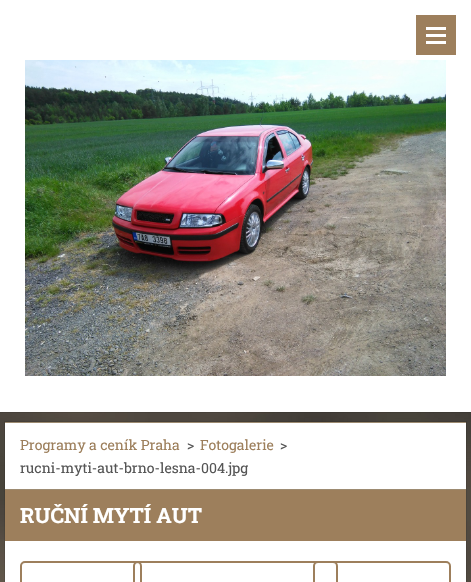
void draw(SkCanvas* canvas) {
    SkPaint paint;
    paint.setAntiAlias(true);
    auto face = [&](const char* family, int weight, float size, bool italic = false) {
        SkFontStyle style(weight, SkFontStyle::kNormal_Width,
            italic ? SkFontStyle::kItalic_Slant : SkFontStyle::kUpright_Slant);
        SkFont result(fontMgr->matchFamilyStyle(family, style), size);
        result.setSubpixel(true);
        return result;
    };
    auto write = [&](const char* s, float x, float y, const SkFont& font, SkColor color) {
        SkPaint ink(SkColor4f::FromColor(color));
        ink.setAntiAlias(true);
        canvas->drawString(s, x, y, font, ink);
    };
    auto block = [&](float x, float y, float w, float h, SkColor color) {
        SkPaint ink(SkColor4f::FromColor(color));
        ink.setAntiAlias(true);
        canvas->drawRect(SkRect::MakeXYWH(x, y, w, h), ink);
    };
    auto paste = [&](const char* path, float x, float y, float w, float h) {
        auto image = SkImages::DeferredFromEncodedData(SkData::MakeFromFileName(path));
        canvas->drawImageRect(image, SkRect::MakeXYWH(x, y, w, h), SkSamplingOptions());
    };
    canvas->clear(SK_ColorWHITE);
    paste("pic1.png", 0, 412, 471, 170);
    paint.setStyle(SkPaint::kStroke_Style);
    paint.setStrokeWidth(1);
    paint.setColor(SkColorSetARGB(26, 0, 0, 0));
    canvas->drawRect(SkRect::MakeXYWH(-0.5f, -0.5f, 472, 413), paint);
    block(416, 15, 40, 40, SkColorSetRGB(157, 127, 92));
    block(426, 27, 20, 3, SK_ColorWHITE);
    block(426, 34, 20, 3, SK_ColorWHITE);
    block(426, 41, 20, 3, SK_ColorWHITE);
    paste("pic2.png", 25, 60, 421, 316);
    block(5, 423, 461, 66, SK_ColorWHITE);
    block(5, 422, 461, 1, SkColorSetRGB(157, 139, 113));
    canvas->drawRect(SkRect::MakeXYWH(4.5f, 421.5f, 462, 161), paint);
    auto kFont1 = face("Roboto Slab", 400, 14);
    write("Programy a ceník Praha", 20, 450, kFont1, SkColorSetRGB(157, 127, 92));
    write(">", 187, 450, kFont1, SkColorSetRGB(85, 85, 85));
    write("Fotogalerie", 200, 450, kFont1, SkColorSetRGB(157, 127, 92));
    write(">", 280, 450, kFont1, SkColorSetRGB(85, 85, 85));
    write("rucni-myti-aut-brno-lesna-004.jpg", 20, 473, kFont1, SkColorSetRGB(85, 85, 85));
    block(5, 489, 461, 1, SkColorSetRGB(157, 139, 113));
    block(5, 490, 461, 51, SkColorSetRGB(157, 127, 92));
    auto kFont2 = face("Roboto Slab", 700, 21);
    write("RUČNÍ MYTÍ AUT", 20, 523, kFont2, SK_ColorWHITE);
    block(5, 541, 461, 41, SK_ColorWHITE);
    paint.setStrokeWidth(2);
    paint.setColor(SkColorSetRGB(157, 127, 92));
    canvas->drawRoundRect(SkRect::MakeXYWH(21, 562, 120, 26), 4, 4, paint);
    canvas->drawRoundRect(SkRect::MakeXYWH(314, 562, 136, 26), 4, 4, paint);
    canvas->drawRoundRect(SkRect::MakeXYWH(134, 562, 203, 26), 4, 4, paint);
}
